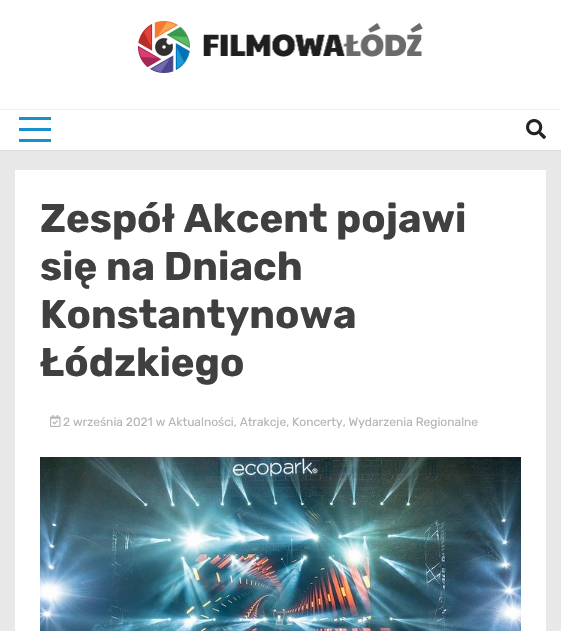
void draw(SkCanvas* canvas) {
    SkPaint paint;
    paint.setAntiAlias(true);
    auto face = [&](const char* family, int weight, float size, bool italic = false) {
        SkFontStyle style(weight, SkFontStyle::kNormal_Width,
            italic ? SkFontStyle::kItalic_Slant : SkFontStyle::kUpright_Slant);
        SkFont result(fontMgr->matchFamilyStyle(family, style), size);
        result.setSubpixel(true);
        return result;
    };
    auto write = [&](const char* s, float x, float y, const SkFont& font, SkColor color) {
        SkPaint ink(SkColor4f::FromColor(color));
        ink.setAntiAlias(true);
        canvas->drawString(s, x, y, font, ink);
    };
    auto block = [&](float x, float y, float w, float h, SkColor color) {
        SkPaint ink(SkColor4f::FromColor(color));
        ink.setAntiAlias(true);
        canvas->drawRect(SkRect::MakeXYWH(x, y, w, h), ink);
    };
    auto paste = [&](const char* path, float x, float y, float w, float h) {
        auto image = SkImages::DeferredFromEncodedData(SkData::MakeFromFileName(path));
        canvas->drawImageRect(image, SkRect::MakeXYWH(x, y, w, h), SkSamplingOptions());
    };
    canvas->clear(SkColorSetRGB(232, 232, 232));
    block(0, 0, 561, 110, SK_ColorWHITE);
    paste("pic1.png", 138, 21, 285, 52);
    paint.setStyle(SkPaint::kStroke_Style);
    paint.setStrokeWidth(1);
    paint.setColor(SkColorSetARGB(15, 0, 0, 0));
    canvas->drawRect(SkRect::MakeXYWH(-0.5f, 109.5f, 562, 41), paint);
    block(0, 110, 561, 40, SK_ColorWHITE);
    block(19, 117, 32, 3, SkColorSetRGB(21, 145, 205));
    block(19, 128, 32, 3, SkColorSetRGB(21, 145, 205));
    block(19, 139, 32, 3, SkColorSetRGB(21, 145, 205));
    paste("pic2.png", 526, 119, 20, 20);
    block(15, 170, 531, 461, SK_ColorWHITE);
    auto kFont1 = face("Rubik", 700, 40);
    write("Zespół Akcent pojawi", 40, 232, kFont1, SkColorSetRGB(64, 64, 64));
    write("się na Dniach", 40, 280, kFont1, SkColorSetRGB(64, 64, 64));
    write("Konstantynowa", 40, 328, kFont1, SkColorSetRGB(64, 64, 64));
    write("Łódzkiego", 40, 376, kFont1, SkColorSetRGB(64, 64, 64));
    paste("pic3.png", 50, 415, 11, 12);
    auto kFont2 = face("Rubik", 400, 12);
    write("2 września 2021 w Aktualności, Atrakcje, Koncerty, Wydarzenia Regionalne", 63, 426, kFont2, SkColorSetRGB(181, 181, 181));
    paste("pic4.png", 40, 457, 481, 174);
}
